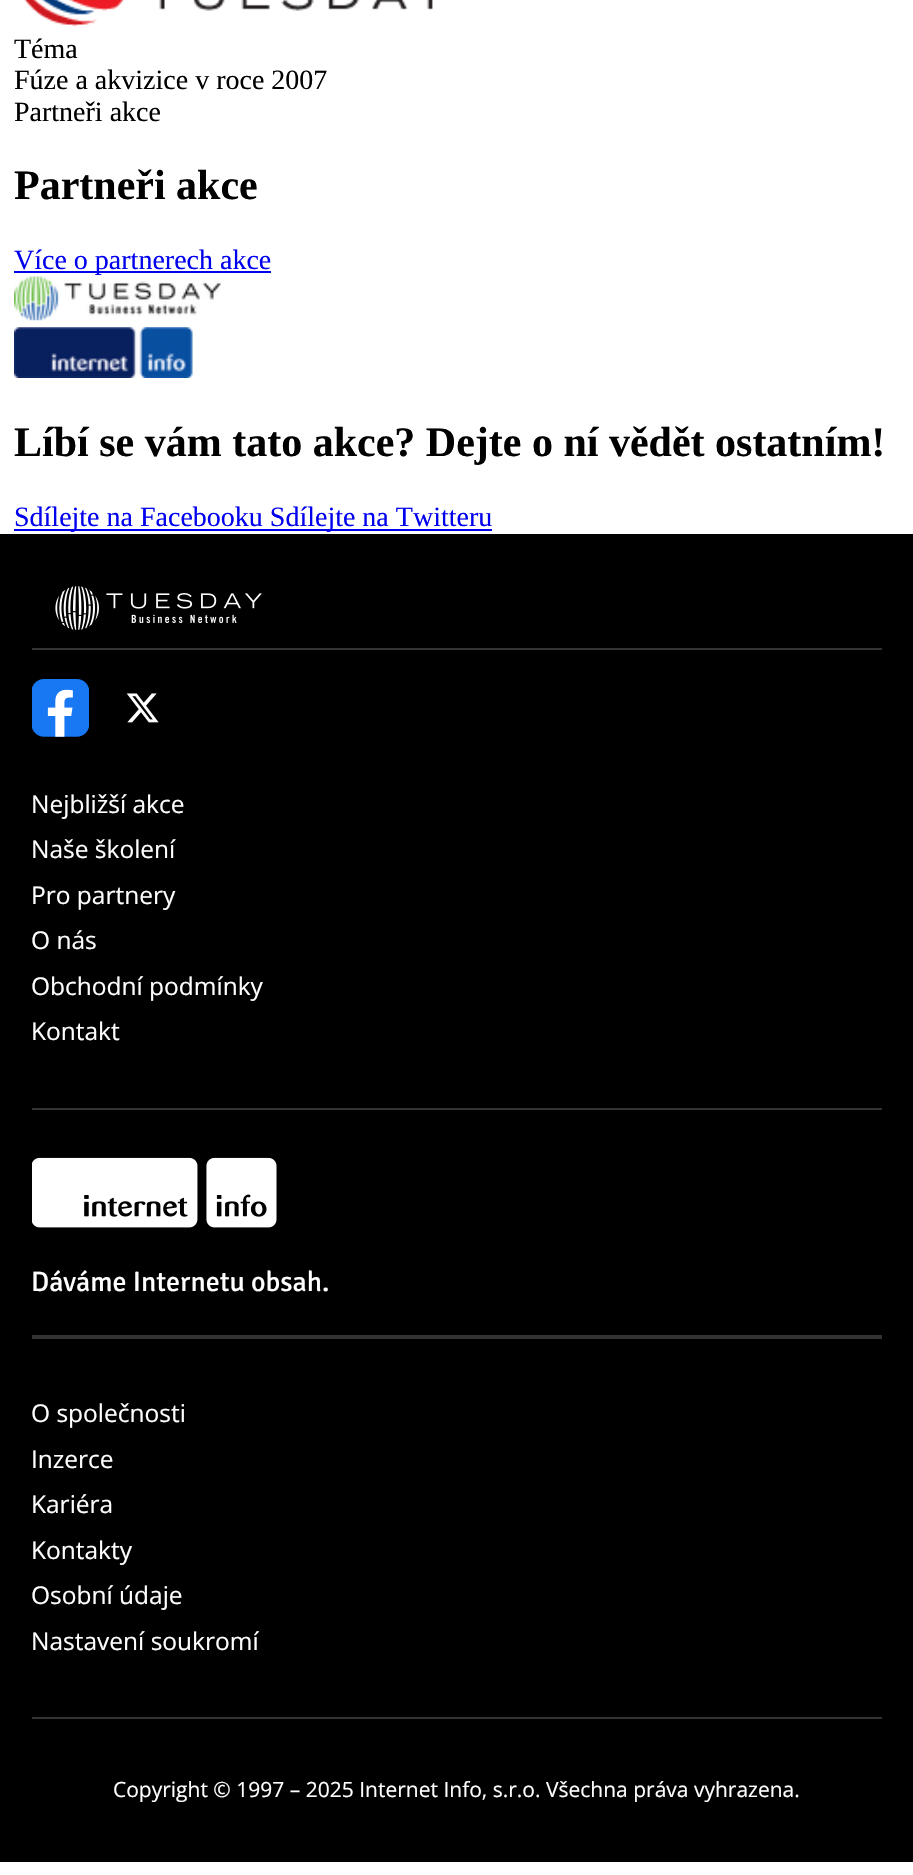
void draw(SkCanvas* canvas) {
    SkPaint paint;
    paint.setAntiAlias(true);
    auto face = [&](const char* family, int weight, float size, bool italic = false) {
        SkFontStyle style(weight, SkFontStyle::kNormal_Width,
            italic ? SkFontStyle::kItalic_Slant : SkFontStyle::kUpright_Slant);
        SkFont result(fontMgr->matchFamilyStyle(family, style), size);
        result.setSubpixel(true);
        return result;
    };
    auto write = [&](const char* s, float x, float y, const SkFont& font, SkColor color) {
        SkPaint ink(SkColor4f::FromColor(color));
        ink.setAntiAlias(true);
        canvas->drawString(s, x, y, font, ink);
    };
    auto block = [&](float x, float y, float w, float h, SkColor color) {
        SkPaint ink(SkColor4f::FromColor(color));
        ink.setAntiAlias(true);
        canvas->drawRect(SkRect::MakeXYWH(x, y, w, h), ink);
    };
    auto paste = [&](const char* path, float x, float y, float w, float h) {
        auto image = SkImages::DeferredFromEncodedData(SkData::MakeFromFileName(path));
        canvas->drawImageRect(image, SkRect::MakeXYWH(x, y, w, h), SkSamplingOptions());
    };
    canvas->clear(SK_ColorWHITE);
    paste("pic1.png", 24, 0, 409, 27);
    auto kFont1 = face("Liberation Serif", 400, 28);
    write("Téma", 14, 58, kFont1, SK_ColorBLACK);
    write("Fúze a akvizice v roce 2007", 14, 89, kFont1, SK_ColorBLACK);
    write("Partneři akce", 14, 121, kFont1, SK_ColorBLACK);
    auto kFont2 = face("Liberation Serif", 700, 42);
    write("Partneři akce", 14, 199, kFont2, SK_ColorBLACK);
    block(14, 271, 257, 2, SkColorSetRGB(0, 0, 238));
    write("Více o partnerech akce", 14, 269, kFont1, SkColorSetRGB(0, 0, 238));
    paste("pic2.png", 14, 276, 207, 45);
    paste("pic3.png", 14, 327, 179, 51);
    write("Líbí se vám tato akce? Dejte o ní vědět ostatním!", 14, 456, kFont2, SK_ColorBLACK);
    block(14, 529, 478, 2, SkColorSetRGB(0, 0, 238));
    write("Sdílejte na Facebooku Sdílejte na Twitteru", 14, 526, kFont1, SkColorSetRGB(0, 0, 238));
    block(0, 534, 913, 1328, SK_ColorBLACK);
    block(32, 648, 850, 2, SkColorSetRGB(51, 51, 51));
    paste("pic4.png", 55, 586, 207, 44);
    paste("pic5.png", 32, 679, 57, 58);
    paste("pic6.png", 126, 693, 33, 30);
    auto kFont3 = face("Open Sans", 400, 24.5f);
    write("Nejbližší akce", 31, 813, kFont3, SK_ColorWHITE);
    write("Naše školení", 31, 858, kFont3, SK_ColorWHITE);
    write("Pro partnery", 31, 904, kFont3, SK_ColorWHITE);
    write("O nás", 31, 949, kFont3, SK_ColorWHITE);
    write("Obchodní podmínky", 31, 995, kFont3, SK_ColorWHITE);
    write("Kontakt", 31, 1040, kFont3, SK_ColorWHITE);
    block(32, 1108, 850, 2, SkColorSetRGB(51, 51, 51));
    paste("pic7.png", 32, 1157, 245, 71);
    block(32, 1335, 850, 4, SkColorSetRGB(51, 51, 51));
    auto kFont4 = face("Signika", 300, 28);
    write("Dáváme Internetu obsah.", 31, 1291, kFont4, SK_ColorWHITE);
    write("O společnosti", 31, 1422, kFont3, SK_ColorWHITE);
    write("Inzerce", 31, 1468, kFont3, SK_ColorWHITE);
    write("Kariéra", 31, 1513, kFont3, SK_ColorWHITE);
    write("Kontakty", 31, 1559, kFont3, SK_ColorWHITE);
    write("Osobní údaje", 31, 1604, kFont3, SK_ColorWHITE);
    write("Nastavení soukromí", 31, 1650, kFont3, SK_ColorWHITE);
    block(32, 1717, 850, 2, SkColorSetRGB(51, 51, 51));
    auto kFont5 = face("Open Sans", 400, 21);
    write("Copyright © 1997 – 2025 Internet Info, s.r.o. Všechna práva vyhrazena.", 113, 1797, kFont5, SK_ColorWHITE);
}
